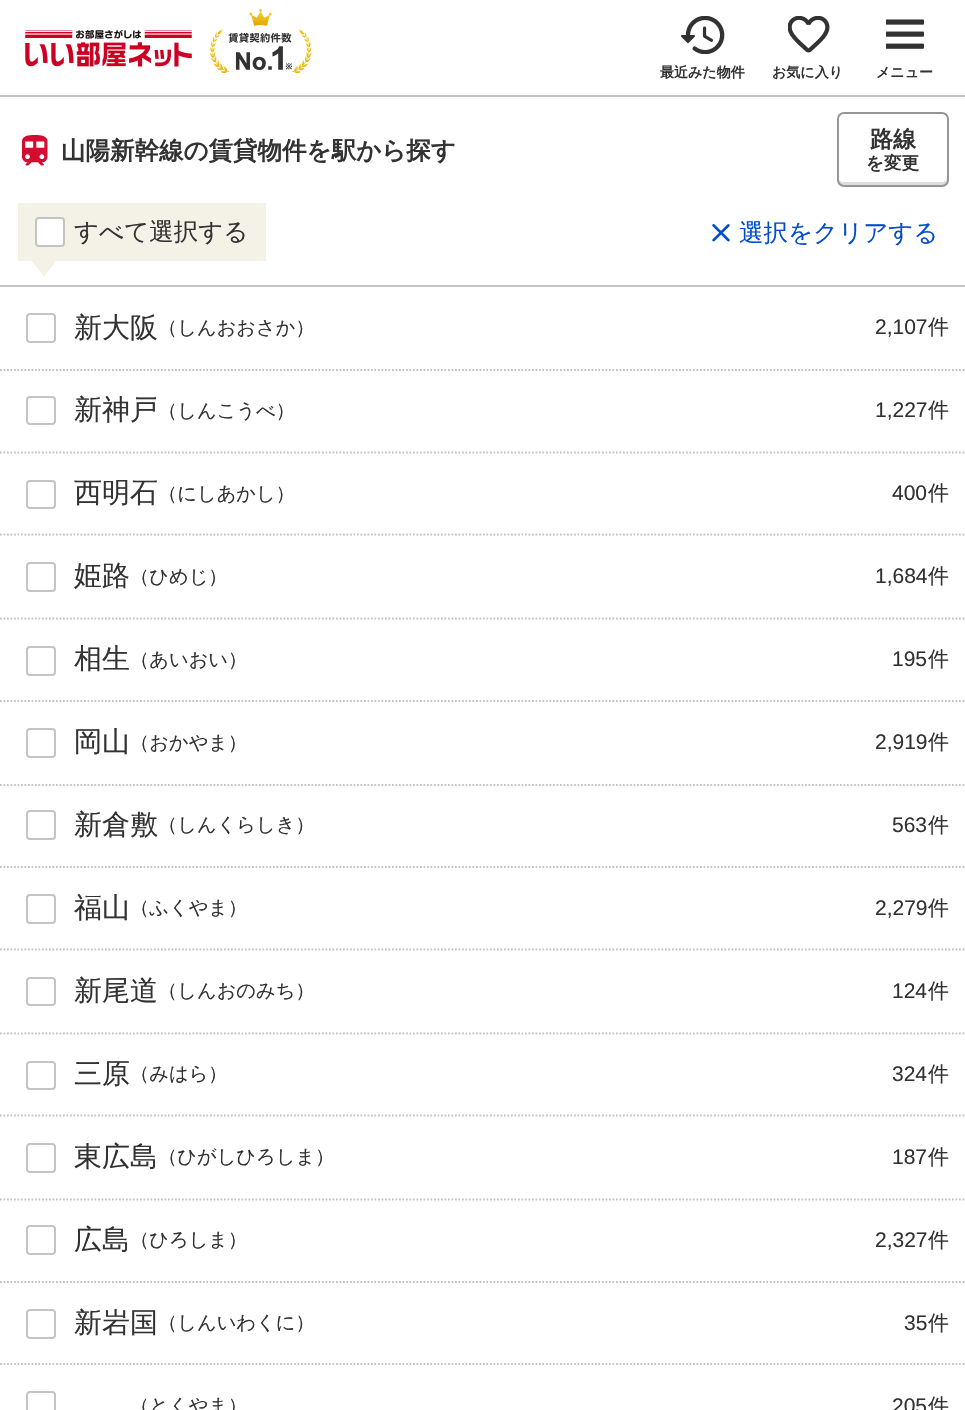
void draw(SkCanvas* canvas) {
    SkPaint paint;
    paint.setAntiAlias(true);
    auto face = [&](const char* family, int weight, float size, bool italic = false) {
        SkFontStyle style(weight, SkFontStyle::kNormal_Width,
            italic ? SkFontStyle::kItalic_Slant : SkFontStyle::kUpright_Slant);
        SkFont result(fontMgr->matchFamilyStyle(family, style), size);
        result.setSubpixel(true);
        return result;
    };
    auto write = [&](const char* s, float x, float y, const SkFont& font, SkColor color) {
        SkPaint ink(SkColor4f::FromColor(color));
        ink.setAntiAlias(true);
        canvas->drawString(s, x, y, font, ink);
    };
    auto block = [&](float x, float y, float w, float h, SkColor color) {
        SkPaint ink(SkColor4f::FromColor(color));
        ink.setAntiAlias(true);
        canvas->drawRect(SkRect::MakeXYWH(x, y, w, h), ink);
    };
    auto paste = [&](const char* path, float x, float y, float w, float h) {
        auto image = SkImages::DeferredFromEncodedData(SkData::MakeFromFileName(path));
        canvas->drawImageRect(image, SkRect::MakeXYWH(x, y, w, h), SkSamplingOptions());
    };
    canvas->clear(SK_ColorWHITE);
    block(0, 95, 965, 2, SkColorSetRGB(196, 196, 196));
    paste("pic1.png", 25, 30, 167, 37);
    paste("pic2.png", 210, 9, 102, 64);
    paste("pic3.png", 681, 16, 44, 38);
    auto kFont1 = face("WenQuanYi Zen Hei", 700, 14);
    write("最近みた物件", 660, 77, kFont1, SkColorSetRGB(50, 50, 50));
    paste("pic4.png", 788, 16, 42, 37);
    write("お気に入り", 772, 77, kFont1, SkColorSetRGB(50, 50, 50));
    paste("pic5.png", 886, 19, 38, 30);
    write("メニュー", 876, 77, kFont1, SkColorSetRGB(50, 50, 50));
    paste("pic6.png", 22, 135, 26, 31);
    auto kFont2 = face("WenQuanYi Zen Hei", 700, 24.5f);
    write("山陽新幹線の賃貸物件を駅から探す", 61, 159, kFont2, SkColorSetRGB(50, 50, 50));
    paint.setColor(SkColorSetRGB(221, 221, 221));
    canvas->drawPath(SkPathBuilder().moveTo(838, 177).lineTo(838, 181).cubicTo(838, 184, 840, 186, 843, 186).lineTo(942, 186).cubicTo(945, 186, 947, 184, 947, 181).lineTo(947, 177).cubicTo(947, 180, 944, 182, 942, 182).lineTo(844, 182).cubicTo(841, 182, 838, 180, 838, 177).close().detach(), paint);
    paint.setStyle(SkPaint::kStroke_Style);
    paint.setStrokeWidth(2);
    paint.setColor(SkColorSetRGB(149, 149, 149));
    canvas->drawRoundRect(SkRect::MakeXYWH(838, 113, 110, 73), 6, 6, paint);
    auto kFont3 = face("WenQuanYi Zen Hei", 700, 23);
    write("路線", 870, 147, kFont3, SkColorSetRGB(50, 50, 50));
    auto kFont4 = face("WenQuanYi Zen Hei", 700, 17.5f);
    write("を変更", 866, 169, kFont4, SkColorSetRGB(50, 50, 50));
    block(18, 203, 248, 58, SkColorSetRGB(244, 241, 230));
    paint.setStyle(SkPaint::kFill_Style);
    paint.setColor(SK_ColorWHITE);
    canvas->drawRoundRect(SkRect::MakeXYWH(36, 218, 28, 28), 3, 3, paint);
    paint.setStyle(SkPaint::kStroke_Style);
    paint.setColor(SkColorSetRGB(196, 196, 196));
    canvas->drawRoundRect(SkRect::MakeXYWH(36, 218, 28, 28), 3, 3, paint);
    auto kFont5 = face("WenQuanYi Zen Hei", 500, 24.5f);
    write("すべて選択する", 74, 240, kFont5, SkColorSetRGB(50, 50, 50));
    paint.setStyle(SkPaint::kFill_Style);
    paint.setColor(SkColorSetRGB(244, 241, 230));
    canvas->drawPath(SkPathBuilder().moveTo(31.5f, 261).lineTo(56, 261).lineTo(44, 276.5f).close().detach(), paint);
    paste("pic7.png", 712, 224, 18, 18);
    write("選択をクリアする", 739, 241, kFont5, SkColorSetRGB(3, 76, 202));
    block(0, 285, 965, 2, SkColorSetRGB(196, 196, 196));
    paint.setStyle(SkPaint::kStroke_Style);
    paint.setStrokeWidth(1.8f);
    paint.setColor(SkColorSetRGB(196, 196, 196));
    paint.setPathEffect(SkDashPathEffect::Make({{1.75f, 1.75f}}, 0));
    canvas->drawPath(SkPathBuilder().moveTo(0, 370).lineTo(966, 370).detach(), paint);
    paint.setPathEffect(nullptr);
    paint.setStrokeWidth(2);
    canvas->drawRoundRect(SkRect::MakeXYWH(27, 314, 28, 28), 3, 3, paint);
    auto kFont6 = face("WenQuanYi Zen Hei", 500, 28);
    write("新大阪", 74, 337, kFont6, SkColorSetRGB(50, 50, 50));
    auto kFont7 = face("WenQuanYi Zen Hei", 500, 19.25f);
    write("（しんおおさか）", 158, 334, kFont7, SkColorSetRGB(50, 50, 50));
    auto kFont8 = face("Liberation Sans", 400, 21);
    write("2,107", 875, 334, kFont8, SkColorSetRGB(50, 50, 50));
    auto kFont9 = face("WenQuanYi Zen Hei", 500, 21);
    write("件", 928, 334, kFont9, SkColorSetRGB(50, 50, 50));
    paint.setStrokeWidth(1.8f);
    paint.setPathEffect(SkDashPathEffect::Make({{1.75f, 1.75f}}, 0));
    canvas->drawPath(SkPathBuilder().moveTo(0, 452.5f).lineTo(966, 452.5f).detach(), paint);
    paint.setPathEffect(nullptr);
    paint.setStrokeWidth(2);
    canvas->drawRoundRect(SkRect::MakeXYWH(27, 397, 28, 27), 3, 3, paint);
    write("新神戸", 74, 419, kFont6, SkColorSetRGB(50, 50, 50));
    write("（しんこうべ）", 158, 417, kFont7, SkColorSetRGB(50, 50, 50));
    write("1,227", 875, 417, kFont8, SkColorSetRGB(50, 50, 50));
    write("件", 928, 417, kFont9, SkColorSetRGB(50, 50, 50));
    paint.setStrokeWidth(1.8f);
    paint.setPathEffect(SkDashPathEffect::Make({{1.75f, 1.75f}}, 0));
    canvas->drawPath(SkPathBuilder().moveTo(0, 534.5f).lineTo(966, 534.5f).detach(), paint);
    paint.setPathEffect(nullptr);
    paint.setStrokeWidth(2);
    canvas->drawRoundRect(SkRect::MakeXYWH(27, 481, 28, 27), 3, 3, paint);
    write("西明石", 74, 502, kFont6, SkColorSetRGB(50, 50, 50));
    write("（にしあかし）", 158, 500, kFont7, SkColorSetRGB(50, 50, 50));
    write("400", 892, 500, kFont8, SkColorSetRGB(50, 50, 50));
    write("件", 928, 500, kFont9, SkColorSetRGB(50, 50, 50));
    paint.setStrokeWidth(1.8f);
    paint.setPathEffect(SkDashPathEffect::Make({{1.75f, 1.75f}}, 0));
    canvas->drawPath(SkPathBuilder().moveTo(0, 618.5f).lineTo(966, 618.5f).detach(), paint);
    paint.setPathEffect(nullptr);
    paint.setStrokeWidth(2);
    canvas->drawRoundRect(SkRect::MakeXYWH(27, 563, 28, 28), 3, 3, paint);
    write("姫路", 74, 585, kFont6, SkColorSetRGB(50, 50, 50));
    write("（ひめじ）", 130, 583, kFont7, SkColorSetRGB(50, 50, 50));
    write("1,684", 875, 583, kFont8, SkColorSetRGB(50, 50, 50));
    write("件", 928, 583, kFont9, SkColorSetRGB(50, 50, 50));
    paint.setStrokeWidth(1.8f);
    paint.setPathEffect(SkDashPathEffect::Make({{1.75f, 1.75f}}, 0));
    canvas->drawPath(SkPathBuilder().moveTo(0, 701).lineTo(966, 701).detach(), paint);
    paint.setPathEffect(nullptr);
    paint.setStrokeWidth(2);
    canvas->drawRoundRect(SkRect::MakeXYWH(27, 647, 28, 28), 3, 3, paint);
    write("相生", 74, 668, kFont6, SkColorSetRGB(50, 50, 50));
    write("（あいおい）", 130, 666, kFont7, SkColorSetRGB(50, 50, 50));
    write("195", 892, 666, kFont8, SkColorSetRGB(50, 50, 50));
    write("件", 928, 666, kFont9, SkColorSetRGB(50, 50, 50));
    paint.setStrokeWidth(1.8f);
    paint.setPathEffect(SkDashPathEffect::Make({{1.75f, 1.75f}}, 0));
    canvas->drawPath(SkPathBuilder().moveTo(0, 785).lineTo(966, 785).detach(), paint);
    paint.setPathEffect(nullptr);
    paint.setStrokeWidth(2);
    canvas->drawRoundRect(SkRect::MakeXYWH(27, 729, 28, 28), 3, 3, paint);
    write("岡山", 74, 751, kFont6, SkColorSetRGB(50, 50, 50));
    write("（おかやま）", 130, 749, kFont7, SkColorSetRGB(50, 50, 50));
    write("2,919", 875, 749, kFont8, SkColorSetRGB(50, 50, 50));
    write("件", 928, 749, kFont9, SkColorSetRGB(50, 50, 50));
    paint.setStrokeWidth(1.8f);
    paint.setPathEffect(SkDashPathEffect::Make({{1.75f, 1.75f}}, 0));
    canvas->drawPath(SkPathBuilder().moveTo(0, 867).lineTo(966, 867).detach(), paint);
    paint.setPathEffect(nullptr);
    paint.setStrokeWidth(2);
    canvas->drawRoundRect(SkRect::MakeXYWH(27, 811, 28, 28), 3, 3, paint);
    write("新倉敷", 74, 834, kFont6, SkColorSetRGB(50, 50, 50));
    write("（しんくらしき）", 158, 831, kFont7, SkColorSetRGB(50, 50, 50));
    write("563", 892, 832, kFont8, SkColorSetRGB(50, 50, 50));
    write("件", 928, 832, kFont9, SkColorSetRGB(50, 50, 50));
    paint.setStrokeWidth(1.8f);
    paint.setPathEffect(SkDashPathEffect::Make({{1.75f, 1.75f}}, 0));
    canvas->drawPath(SkPathBuilder().moveTo(0, 949.5f).lineTo(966, 949.5f).detach(), paint);
    paint.setPathEffect(nullptr);
    paint.setStrokeWidth(2);
    canvas->drawRoundRect(SkRect::MakeXYWH(27, 895, 28, 28), 3, 3, paint);
    write("福山", 74, 917, kFont6, SkColorSetRGB(50, 50, 50));
    write("（ふくやま）", 130, 914, kFont7, SkColorSetRGB(50, 50, 50));
    write("2,279", 875, 915, kFont8, SkColorSetRGB(50, 50, 50));
    write("件", 928, 915, kFont9, SkColorSetRGB(50, 50, 50));
    paint.setStrokeWidth(1.8f);
    paint.setPathEffect(SkDashPathEffect::Make({{1.75f, 1.75f}}, 0));
    canvas->drawPath(SkPathBuilder().moveTo(0, 1033.5f).lineTo(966, 1033.5f).detach(), paint);
    paint.setPathEffect(nullptr);
    paint.setStrokeWidth(2);
    canvas->drawRoundRect(SkRect::MakeXYWH(27, 978, 28, 27), 3, 3, paint);
    write("新尾道", 74, 1000, kFont6, SkColorSetRGB(50, 50, 50));
    write("（しんおのみち）", 158, 997, kFont7, SkColorSetRGB(50, 50, 50));
    write("124", 892, 998, kFont8, SkColorSetRGB(50, 50, 50));
    write("件", 928, 998, kFont9, SkColorSetRGB(50, 50, 50));
    paint.setStrokeWidth(1.8f);
    paint.setPathEffect(SkDashPathEffect::Make({{1.75f, 1.75f}}, 0));
    canvas->drawPath(SkPathBuilder().moveTo(0, 1115.5f).lineTo(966, 1115.5f).detach(), paint);
    paint.setPathEffect(nullptr);
    paint.setStrokeWidth(2);
    canvas->drawRoundRect(SkRect::MakeXYWH(27, 1062, 28, 27), 3, 3, paint);
    write("三原", 74, 1083, kFont6, SkColorSetRGB(50, 50, 50));
    write("（みはら）", 130, 1080, kFont7, SkColorSetRGB(50, 50, 50));
    write("324", 892, 1081, kFont8, SkColorSetRGB(50, 50, 50));
    write("件", 928, 1081, kFont9, SkColorSetRGB(50, 50, 50));
    paint.setStrokeWidth(1.8f);
    paint.setPathEffect(SkDashPathEffect::Make({{1.75f, 1.75f}}, 0));
    canvas->drawPath(SkPathBuilder().moveTo(0, 1199.5f).lineTo(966, 1199.5f).detach(), paint);
    paint.setPathEffect(nullptr);
    paint.setStrokeWidth(2);
    canvas->drawRoundRect(SkRect::MakeXYWH(27, 1144, 28, 28), 3, 3, paint);
    write("東広島", 74, 1166, kFont6, SkColorSetRGB(50, 50, 50));
    write("（ひがしひろしま）", 158, 1163, kFont7, SkColorSetRGB(50, 50, 50));
    write("187", 892, 1164, kFont8, SkColorSetRGB(50, 50, 50));
    write("件", 928, 1164, kFont9, SkColorSetRGB(50, 50, 50));
    paint.setStrokeWidth(1.8f);
    paint.setPathEffect(SkDashPathEffect::Make({{1.75f, 1.75f}}, 0));
    canvas->drawPath(SkPathBuilder().moveTo(0, 1282).lineTo(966, 1282).detach(), paint);
    paint.setPathEffect(nullptr);
    paint.setStrokeWidth(2);
    canvas->drawRoundRect(SkRect::MakeXYWH(27, 1226, 28, 28), 3, 3, paint);
    write("広島", 74, 1249, kFont6, SkColorSetRGB(50, 50, 50));
    write("（ひろしま）", 130, 1246, kFont7, SkColorSetRGB(50, 50, 50));
    write("2,327", 875, 1247, kFont8, SkColorSetRGB(50, 50, 50));
    write("件", 928, 1247, kFont9, SkColorSetRGB(50, 50, 50));
    paint.setStrokeWidth(1.8f);
    paint.setPathEffect(SkDashPathEffect::Make({{1.75f, 1.75f}}, 0));
    canvas->drawPath(SkPathBuilder().moveTo(0, 1364).lineTo(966, 1364).detach(), paint);
    paint.setPathEffect(nullptr);
    paint.setStrokeWidth(2);
    canvas->drawRoundRect(SkRect::MakeXYWH(27, 1310, 28, 28), 3, 3, paint);
    write("新岩国", 74, 1332, kFont6, SkColorSetRGB(50, 50, 50));
    write("（しんいわくに）", 158, 1329, kFont7, SkColorSetRGB(50, 50, 50));
    write("35", 904, 1330, kFont8, SkColorSetRGB(50, 50, 50));
    write("件", 928, 1330, kFont9, SkColorSetRGB(50, 50, 50));
    canvas->drawRoundRect(SkRect::MakeXYWH(27, 1392, 28, 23), 3, 3, paint);
    write("（とくやま）", 130, 1412, kFont7, SkColorSetRGB(50, 50, 50));
    write("205", 892, 1413, kFont8, SkColorSetRGB(50, 50, 50));
    write("件", 928, 1413, kFont9, SkColorSetRGB(50, 50, 50));
}
